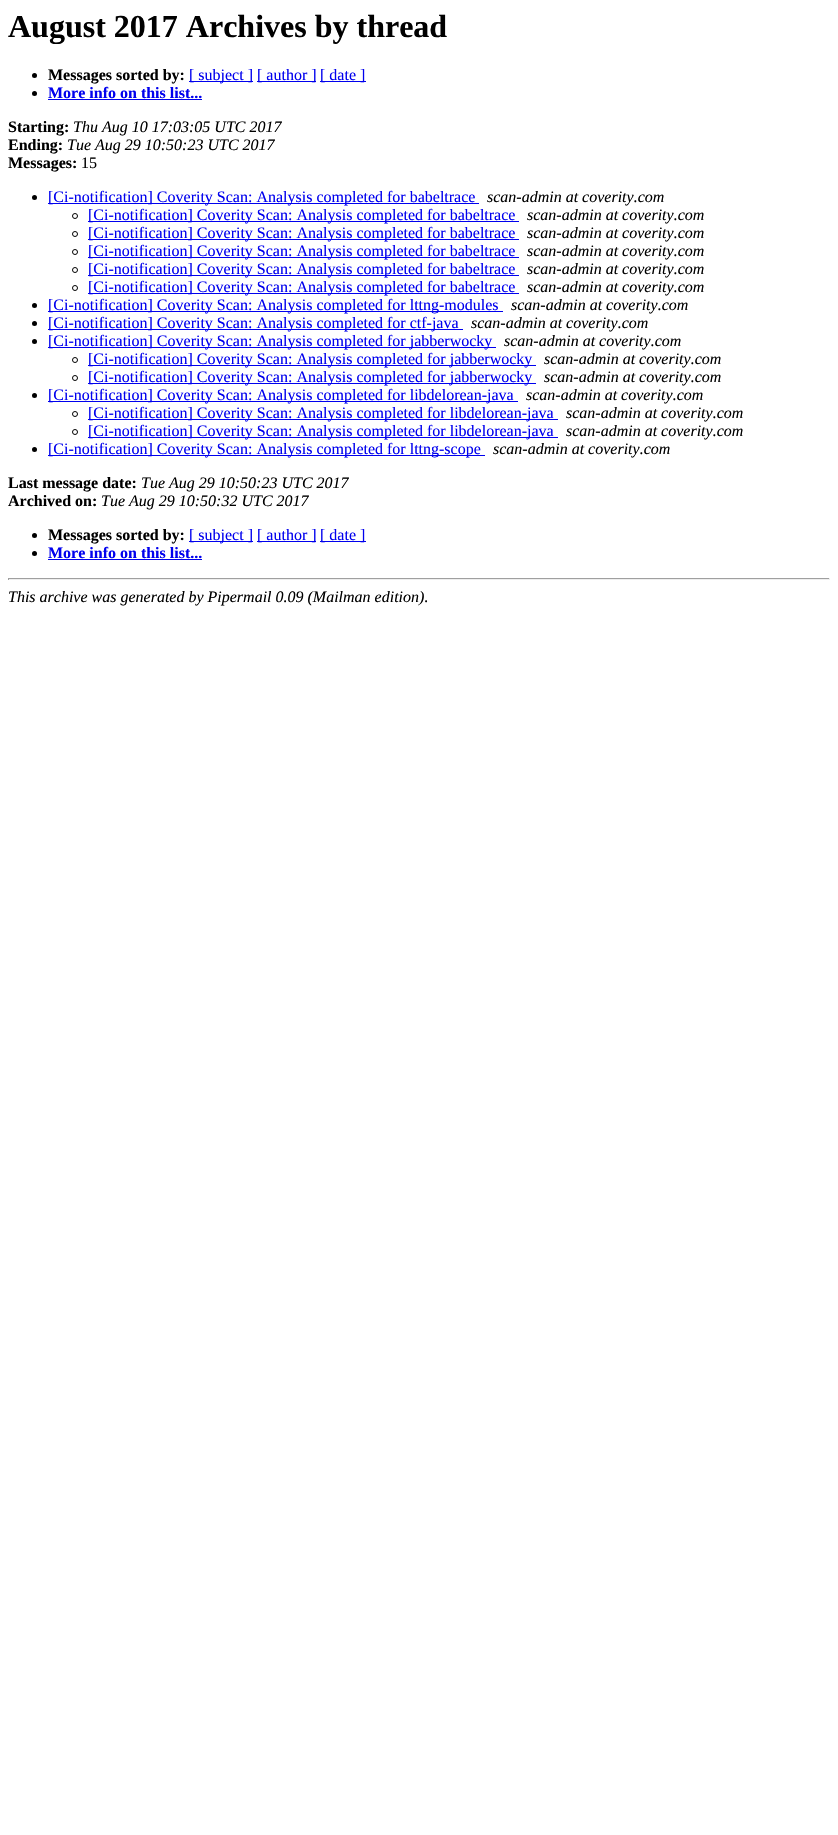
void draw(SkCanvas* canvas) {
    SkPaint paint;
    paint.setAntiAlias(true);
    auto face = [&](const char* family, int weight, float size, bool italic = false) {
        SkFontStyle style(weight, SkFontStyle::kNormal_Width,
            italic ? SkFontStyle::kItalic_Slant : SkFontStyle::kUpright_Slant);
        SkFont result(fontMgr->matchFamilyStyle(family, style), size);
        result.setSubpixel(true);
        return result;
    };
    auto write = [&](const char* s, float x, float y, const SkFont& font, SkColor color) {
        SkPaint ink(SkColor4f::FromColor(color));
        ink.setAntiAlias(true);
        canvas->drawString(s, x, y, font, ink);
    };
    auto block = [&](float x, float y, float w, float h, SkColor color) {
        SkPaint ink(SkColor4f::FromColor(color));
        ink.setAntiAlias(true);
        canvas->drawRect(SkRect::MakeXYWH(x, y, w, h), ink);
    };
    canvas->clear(SK_ColorWHITE);
    auto kFont1 = face("Liberation Serif", 700, 32);
    write("August 2017 Archives by thread", 8, 37, kFont1, SK_ColorBLACK);
    paint.setColor(SK_ColorBLACK);
    canvas->drawCircle(34.5f, 75.5f, 2.5f, paint);
    auto kFont2 = face("Liberation Serif", 700, 16);
    write("Messages sorted by:", 48, 80, kFont2, SK_ColorBLACK);
    block(189, 81, 64, 1, SkColorSetRGB(0, 0, 238));
    auto kFont3 = face("Liberation Serif", 400, 16);
    write("[ subject ]", 189, 80, kFont3, SkColorSetRGB(0, 0, 238));
    block(257, 81, 59, 1, SkColorSetRGB(0, 0, 238));
    write("[ author ]", 257, 80, kFont3, SkColorSetRGB(0, 0, 238));
    block(320, 81, 46, 1, SkColorSetRGB(0, 0, 238));
    write("[ date ]", 320, 80, kFont3, SkColorSetRGB(0, 0, 238));
    canvas->drawCircle(34.5f, 93.5f, 2.5f, paint);
    write("More info on this list...", 48, 98, kFont2, SkColorSetRGB(0, 0, 238));
    block(48, 99, 154, 1, SkColorSetRGB(0, 0, 238));
    write("Starting:", 8, 132, kFont2, SK_ColorBLACK);
    auto kFont4 = face("Liberation Serif", 400, 16, true);
    write("Thu Aug 10 17:03:05 UTC 2017", 73, 132, kFont4, SK_ColorBLACK);
    write("Ending:", 8, 150, kFont2, SK_ColorBLACK);
    write("Tue Aug 29 10:50:23 UTC 2017", 67, 150, kFont4, SK_ColorBLACK);
    write("Messages:", 8, 168, kFont2, SK_ColorBLACK);
    write("15", 81, 168, kFont3, SK_ColorBLACK);
    canvas->drawCircle(34.5f, 197.5f, 2.5f, paint);
    block(48, 203, 431, 1, SkColorSetRGB(0, 0, 238));
    write("[Ci-notification] Coverity Scan: Analysis completed for babeltrace", 48, 202, kFont3, SkColorSetRGB(0, 0, 238));
    write("scan-admin at coverity.com", 487, 202, kFont4, SK_ColorBLACK);
    paint.setStyle(SkPaint::kStroke_Style);
    paint.setStrokeWidth(1);
    canvas->drawCircle(75, 216, 2.5f, paint);
    block(88, 221, 431, 1, SkColorSetRGB(0, 0, 238));
    write("[Ci-notification] Coverity Scan: Analysis completed for babeltrace", 88, 220, kFont3, SkColorSetRGB(0, 0, 238));
    write("scan-admin at coverity.com", 527, 220, kFont4, SK_ColorBLACK);
    canvas->drawCircle(75, 234, 2.5f, paint);
    block(88, 239, 431, 1, SkColorSetRGB(0, 0, 238));
    write("[Ci-notification] Coverity Scan: Analysis completed for babeltrace", 88, 238, kFont3, SkColorSetRGB(0, 0, 238));
    write("scan-admin at coverity.com", 527, 238, kFont4, SK_ColorBLACK);
    canvas->drawCircle(75, 252, 2.5f, paint);
    block(88, 257, 431, 1, SkColorSetRGB(0, 0, 238));
    write("[Ci-notification] Coverity Scan: Analysis completed for babeltrace", 88, 256, kFont3, SkColorSetRGB(0, 0, 238));
    write("scan-admin at coverity.com", 527, 256, kFont4, SK_ColorBLACK);
    canvas->drawCircle(75, 270, 2.5f, paint);
    block(88, 275, 431, 1, SkColorSetRGB(0, 0, 238));
    write("[Ci-notification] Coverity Scan: Analysis completed for babeltrace", 88, 274, kFont3, SkColorSetRGB(0, 0, 238));
    write("scan-admin at coverity.com", 527, 274, kFont4, SK_ColorBLACK);
    canvas->drawCircle(75, 288, 2.5f, paint);
    block(88, 293, 431, 1, SkColorSetRGB(0, 0, 238));
    write("[Ci-notification] Coverity Scan: Analysis completed for babeltrace", 88, 292, kFont3, SkColorSetRGB(0, 0, 238));
    write("scan-admin at coverity.com", 527, 292, kFont4, SK_ColorBLACK);
    paint.setStyle(SkPaint::kFill_Style);
    canvas->drawCircle(34.5f, 305.5f, 2.5f, paint);
    block(48, 311, 455, 1, SkColorSetRGB(0, 0, 238));
    write("[Ci-notification] Coverity Scan: Analysis completed for lttng-modules", 48, 310, kFont3, SkColorSetRGB(0, 0, 238));
    write("scan-admin at coverity.com", 511, 310, kFont4, SK_ColorBLACK);
    canvas->drawCircle(34.5f, 323.5f, 2.5f, paint);
    block(48, 329, 415, 1, SkColorSetRGB(0, 0, 238));
    write("[Ci-notification] Coverity Scan: Analysis completed for ctf-java", 48, 328, kFont3, SkColorSetRGB(0, 0, 238));
    write("scan-admin at coverity.com", 471, 328, kFont4, SK_ColorBLACK);
    canvas->drawCircle(34.5f, 341.5f, 2.5f, paint);
    block(48, 347, 448, 1, SkColorSetRGB(0, 0, 238));
    write("[Ci-notification] Coverity Scan: Analysis completed for jabberwocky", 48, 346, kFont3, SkColorSetRGB(0, 0, 238));
    write("scan-admin at coverity.com", 504, 346, kFont4, SK_ColorBLACK);
    paint.setStyle(SkPaint::kStroke_Style);
    canvas->drawCircle(75, 360, 2.5f, paint);
    block(88, 365, 448, 1, SkColorSetRGB(0, 0, 238));
    write("[Ci-notification] Coverity Scan: Analysis completed for jabberwocky", 88, 364, kFont3, SkColorSetRGB(0, 0, 238));
    write("scan-admin at coverity.com", 544, 364, kFont4, SK_ColorBLACK);
    canvas->drawCircle(75, 378, 2.5f, paint);
    block(88, 383, 448, 1, SkColorSetRGB(0, 0, 238));
    write("[Ci-notification] Coverity Scan: Analysis completed for jabberwocky", 88, 382, kFont3, SkColorSetRGB(0, 0, 238));
    write("scan-admin at coverity.com", 544, 382, kFont4, SK_ColorBLACK);
    paint.setStyle(SkPaint::kFill_Style);
    canvas->drawCircle(34.5f, 395.5f, 2.5f, paint);
    block(48, 401, 470, 1, SkColorSetRGB(0, 0, 238));
    write("[Ci-notification] Coverity Scan: Analysis completed for libdelorean-java", 48, 400, kFont3, SkColorSetRGB(0, 0, 238));
    write("scan-admin at coverity.com", 526, 400, kFont4, SK_ColorBLACK);
    paint.setStyle(SkPaint::kStroke_Style);
    canvas->drawCircle(75, 414, 2.5f, paint);
    block(88, 419, 470, 1, SkColorSetRGB(0, 0, 238));
    write("[Ci-notification] Coverity Scan: Analysis completed for libdelorean-java", 88, 418, kFont3, SkColorSetRGB(0, 0, 238));
    write("scan-admin at coverity.com", 566, 418, kFont4, SK_ColorBLACK);
    canvas->drawCircle(75, 432, 2.5f, paint);
    block(88, 437, 470, 1, SkColorSetRGB(0, 0, 238));
    write("[Ci-notification] Coverity Scan: Analysis completed for libdelorean-java", 88, 436, kFont3, SkColorSetRGB(0, 0, 238));
    write("scan-admin at coverity.com", 566, 436, kFont4, SK_ColorBLACK);
    paint.setStyle(SkPaint::kFill_Style);
    canvas->drawCircle(34.5f, 449.5f, 2.5f, paint);
    block(48, 455, 437, 1, SkColorSetRGB(0, 0, 238));
    write("[Ci-notification] Coverity Scan: Analysis completed for lttng-scope", 48, 454, kFont3, SkColorSetRGB(0, 0, 238));
    write("scan-admin at coverity.com", 493, 454, kFont4, SK_ColorBLACK);
    write("Last message date:", 8, 488, kFont2, SK_ColorBLACK);
    write("Tue Aug 29 10:50:23 UTC 2017", 141, 488, kFont4, SK_ColorBLACK);
    write("Archived on:", 8, 506, kFont2, SK_ColorBLACK);
    write("Tue Aug 29 10:50:32 UTC 2017", 101, 506, kFont4, SK_ColorBLACK);
    canvas->drawCircle(34.5f, 535.5f, 2.5f, paint);
    write("Messages sorted by:", 48, 540, kFont2, SK_ColorBLACK);
    block(189, 541, 64, 1, SkColorSetRGB(0, 0, 238));
    write("[ subject ]", 189, 540, kFont3, SkColorSetRGB(0, 0, 238));
    block(257, 541, 59, 1, SkColorSetRGB(0, 0, 238));
    write("[ author ]", 257, 540, kFont3, SkColorSetRGB(0, 0, 238));
    block(320, 541, 46, 1, SkColorSetRGB(0, 0, 238));
    write("[ date ]", 320, 540, kFont3, SkColorSetRGB(0, 0, 238));
    canvas->drawCircle(34.5f, 553.5f, 2.5f, paint);
    write("More info on this list...", 48, 558, kFont2, SkColorSetRGB(0, 0, 238));
    block(48, 559, 154, 1, SkColorSetRGB(0, 0, 238));
    block(8, 578, 822, 1, SkColorSetRGB(159, 159, 159));
    block(829, 578, 1, 2, SkColorSetRGB(238, 238, 238));
    block(8, 579, 822, 1, SkColorSetRGB(238, 238, 238));
    block(8, 578, 1, 2, SkColorSetRGB(159, 159, 159));
    write("This archive was generated by Pipermail 0.09 (Mailman edition).", 8, 602, kFont4, SK_ColorBLACK);
}
